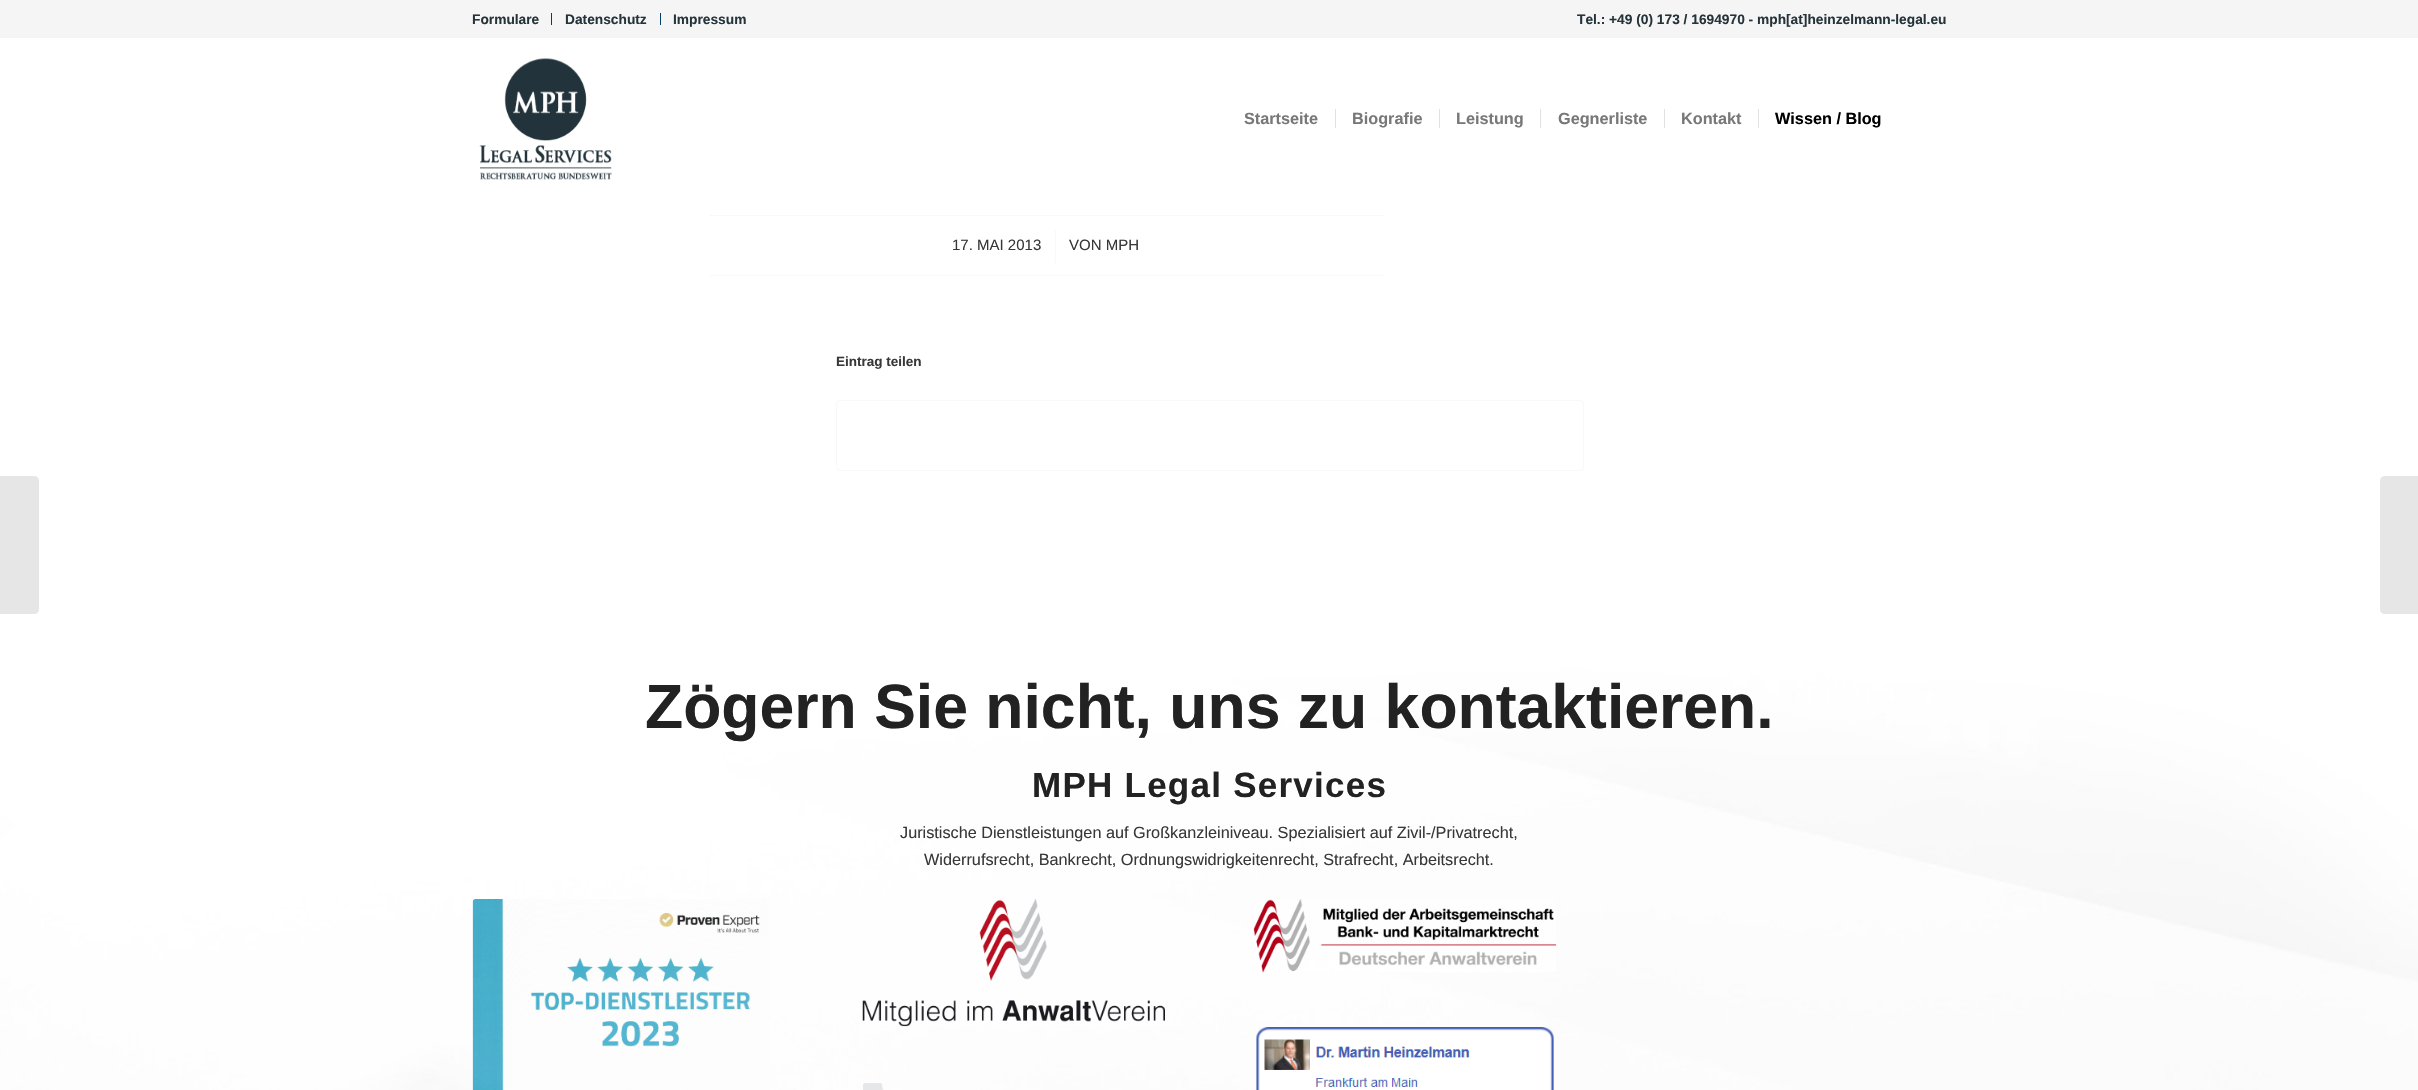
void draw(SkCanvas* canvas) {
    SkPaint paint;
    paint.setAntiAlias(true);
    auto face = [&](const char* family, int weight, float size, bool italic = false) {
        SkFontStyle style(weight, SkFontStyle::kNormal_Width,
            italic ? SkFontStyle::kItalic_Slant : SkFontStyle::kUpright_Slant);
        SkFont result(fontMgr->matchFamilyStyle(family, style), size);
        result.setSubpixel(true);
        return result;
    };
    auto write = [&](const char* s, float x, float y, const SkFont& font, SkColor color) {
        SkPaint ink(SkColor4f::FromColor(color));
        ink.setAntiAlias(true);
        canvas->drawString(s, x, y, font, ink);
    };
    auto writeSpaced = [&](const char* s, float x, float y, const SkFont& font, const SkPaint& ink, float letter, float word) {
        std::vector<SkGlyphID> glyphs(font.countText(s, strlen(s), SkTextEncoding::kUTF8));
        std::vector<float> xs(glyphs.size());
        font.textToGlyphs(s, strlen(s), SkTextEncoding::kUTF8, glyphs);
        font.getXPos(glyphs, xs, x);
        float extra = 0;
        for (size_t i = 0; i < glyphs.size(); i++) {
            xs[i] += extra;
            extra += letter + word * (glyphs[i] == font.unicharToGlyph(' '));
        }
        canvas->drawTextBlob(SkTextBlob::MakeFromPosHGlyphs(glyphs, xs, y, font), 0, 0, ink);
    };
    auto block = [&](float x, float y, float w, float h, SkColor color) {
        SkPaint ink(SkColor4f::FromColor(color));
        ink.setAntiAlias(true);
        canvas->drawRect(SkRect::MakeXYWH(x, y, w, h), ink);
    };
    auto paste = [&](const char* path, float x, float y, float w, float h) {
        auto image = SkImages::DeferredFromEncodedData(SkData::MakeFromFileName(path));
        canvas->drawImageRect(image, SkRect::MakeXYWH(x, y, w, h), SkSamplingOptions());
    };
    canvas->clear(SK_ColorWHITE);
    block(0, 0, 2418, 38, SkColorSetRGB(245, 245, 245));
    block(551, 13, 1, 12, SkColorSetRGB(7, 62, 99));
    auto kFont1 = face("Liberation Sans", 700, 13.75f);
    write("Formulare", 472, 24, kFont1, SkColorSetRGB(37, 51, 58));
    block(660, 13, 1, 12, SkColorSetRGB(7, 62, 99));
    write("Datenschutz", 565, 24, kFont1, SkColorSetRGB(37, 51, 58));
    write("Impressum", 673, 24, kFont1, SkColorSetRGB(37, 51, 58));
    write("Tel.: +49 (0) 173 / 1694970 - mph[at]heinzelmann-legal.eu", 1577, 24, kFont1, SkColorSetRGB(37, 51, 58));
    paste("pic1.png", 479, 58, 133, 122);
    auto kFont2 = face("Liberation Sans", 700, 16.25f);
    write("Startseite", 1244, 124, kFont2, SkColorSetRGB(120, 120, 120));
    write("Biografie", 1352, 124, kFont2, SkColorSetRGB(120, 120, 120));
    block(1335, 109, 1, 19, SkColorSetRGB(225, 225, 225));
    write("Leistung", 1456, 124, kFont2, SkColorSetRGB(120, 120, 120));
    block(1439, 109, 1, 19, SkColorSetRGB(225, 225, 225));
    write("Gegnerliste", 1558, 124, kFont2, SkColorSetRGB(120, 120, 120));
    block(1540, 109, 1, 19, SkColorSetRGB(225, 225, 225));
    write("Kontakt", 1681, 124, kFont2, SkColorSetRGB(120, 120, 120));
    block(1664, 109, 1, 19, SkColorSetRGB(225, 225, 225));
    write("Wissen / Blog", 1775, 124, kFont2, SK_ColorBLACK);
    block(1758, 109, 1, 19, SkColorSetRGB(225, 225, 225));
    paste("pic2.png", 0, 585, 2418, 505);
    paint.setColor(SkColorSetRGB(230, 230, 230));
    canvas->drawPath(SkPathBuilder().moveTo(0, 476).lineTo(34, 476).cubicTo(37, 476, 39, 478, 39, 481).lineTo(39, 609).cubicTo(39, 612, 37, 614, 34, 614).lineTo(0, 614).close().detach(), paint);
    block(710, 215, 673, 1, SkColorSetRGB(248, 248, 248));
    block(710, 275, 673, 1, SkColorSetRGB(248, 248, 248));
    auto kFont3 = face("Liberation Sans", 400, 15);
    write("17. MAI 2013", 952, 250, kFont3, SkColorSetRGB(56, 56, 56));
    block(1055, 230, 1, 33, SkColorSetRGB(248, 248, 248));
    write("VON MPH", 1069, 250, kFont3, SkColorSetRGB(56, 56, 56));
    auto kFont4 = face("Liberation Sans", 700, 13.5f);
    write("Eintrag teilen", 836, 366, kFont4, SkColorSetRGB(56, 56, 56));
    paint.setStyle(SkPaint::kStroke_Style);
    paint.setStrokeWidth(1);
    paint.setColor(SkColorSetRGB(248, 248, 248));
    canvas->drawRoundRect(SkRect::MakeXYWH(836.5f, 400.5f, 747, 70), 3.5f, 3.5f, paint);
    auto kFont5 = face("Liberation Sans", 700, 62.5f);
    write("Zögern Sie nicht, uns zu kontaktieren.", 645, 728, kFont5, SkColorSetRGB(34, 34, 34));
    auto kFont6 = face("Liberation Sans", 700, 35);
    paint.setStyle(SkPaint::kFill_Style);
    paint.setColor(SkColorSetRGB(34, 34, 34));
    writeSpaced("MPH Legal Services", 1032, 797, kFont6, paint, 1.25f, 0);
    auto kFont7 = face("Liberation Sans", 400, 16.25f);
    write("Juristische Dienstleistungen auf Großkanzleiniveau. Spezialisiert auf Zivil-/Privatrecht,", 900, 838, kFont7, SkColorSetRGB(56, 56, 56));
    write("Widerrufsrecht, Bankrecht, Ordnungswidrigkeitenrecht, Strafrecht, Arbeitsrecht.", 924, 865, kFont7, SkColorSetRGB(56, 56, 56));
    paste("pic3.png", 472, 899, 298, 191);
    paste("pic4.png", 862, 899, 303, 128);
    paste("pic5.png", 863, 1083, 21, 7);
    paste("pic6.png", 1253, 899, 304, 74);
    paste("pic7.png", 1256, 1027, 298, 63);
    paint.setColor(SkColorSetRGB(230, 230, 230));
    canvas->drawPath(SkPathBuilder().moveTo(2385, 476).lineTo(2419, 476).lineTo(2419, 614).lineTo(2385, 614).cubicTo(2382, 614, 2380, 612, 2380, 609).lineTo(2380, 481).cubicTo(2380, 478, 2382, 476, 2385, 476).close().detach(), paint);
}
